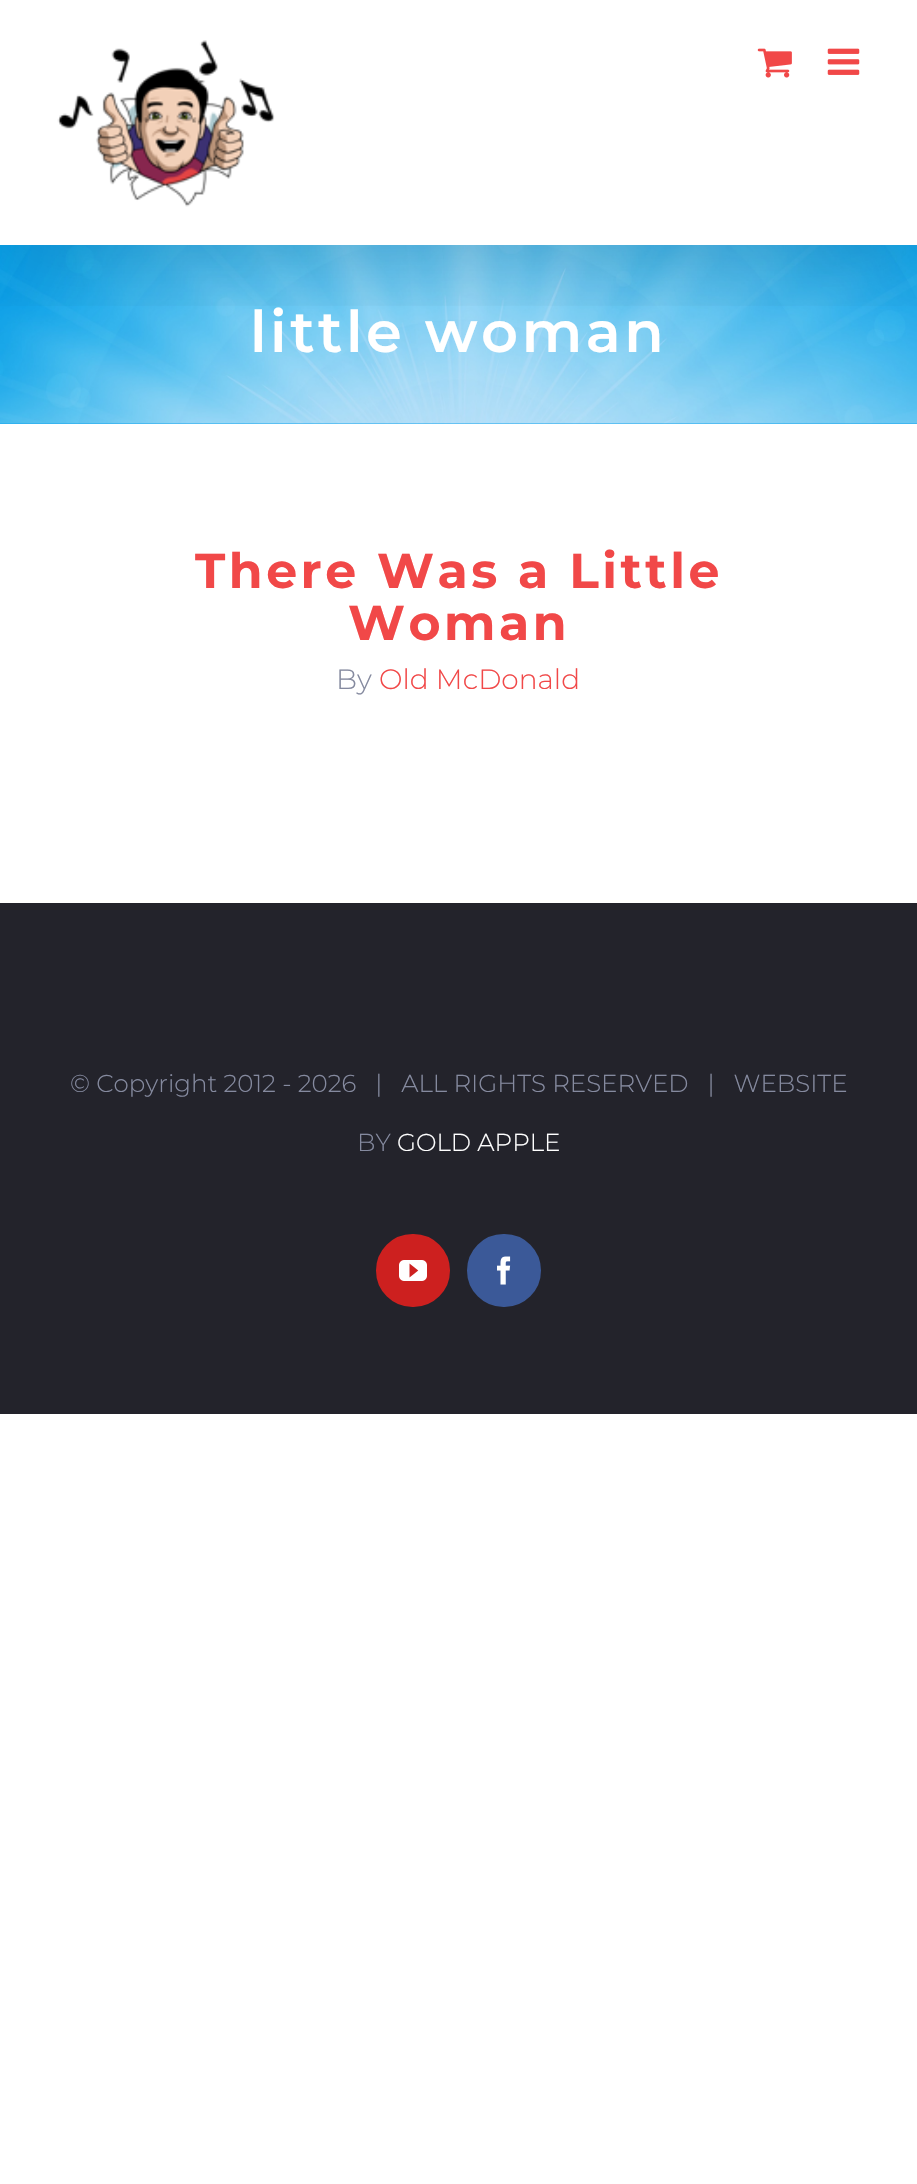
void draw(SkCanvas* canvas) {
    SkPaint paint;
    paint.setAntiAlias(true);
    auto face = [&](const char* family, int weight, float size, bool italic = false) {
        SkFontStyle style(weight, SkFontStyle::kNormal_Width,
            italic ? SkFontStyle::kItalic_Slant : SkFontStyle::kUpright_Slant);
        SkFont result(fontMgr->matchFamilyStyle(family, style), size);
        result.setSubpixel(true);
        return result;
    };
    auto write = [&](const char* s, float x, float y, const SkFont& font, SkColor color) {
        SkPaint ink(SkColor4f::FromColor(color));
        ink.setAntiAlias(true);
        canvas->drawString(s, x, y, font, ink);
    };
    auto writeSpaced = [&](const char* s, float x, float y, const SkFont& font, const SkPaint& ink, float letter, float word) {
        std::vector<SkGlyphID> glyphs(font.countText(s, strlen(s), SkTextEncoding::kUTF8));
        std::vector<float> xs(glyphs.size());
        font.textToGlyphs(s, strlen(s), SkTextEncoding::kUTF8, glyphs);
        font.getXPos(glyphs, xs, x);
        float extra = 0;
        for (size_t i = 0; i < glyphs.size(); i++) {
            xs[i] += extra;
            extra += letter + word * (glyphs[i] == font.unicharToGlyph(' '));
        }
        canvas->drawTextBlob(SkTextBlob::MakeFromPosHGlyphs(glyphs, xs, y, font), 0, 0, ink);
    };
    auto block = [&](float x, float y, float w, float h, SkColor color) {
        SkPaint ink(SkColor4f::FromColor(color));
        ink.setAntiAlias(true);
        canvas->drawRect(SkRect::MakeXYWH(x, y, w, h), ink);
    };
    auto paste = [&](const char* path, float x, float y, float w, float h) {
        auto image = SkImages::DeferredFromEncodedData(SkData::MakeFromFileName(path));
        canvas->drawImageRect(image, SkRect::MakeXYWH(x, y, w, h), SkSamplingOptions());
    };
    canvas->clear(SK_ColorWHITE);
    block(0, 423, 917, 1, SkColorSetRGB(24, 167, 239));
    paste("pic4.png", 0, 245, 917, 179);
    canvas->save();
    canvas->clipRect(SkRect::MakeXYWH(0, 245, 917, 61));
    paint.setColor(SkColorSetARGB(36, 0, 0, 0));
    paint.setMaskFilter(SkMaskFilter::MakeBlur(kNormal_SkBlurStyle, 44));
    canvas->drawRect(SkRect::MakeXYWH(4, 21, 910, 238), paint);
    paint.setMaskFilter(nullptr);
    canvas->restore();
    paste("pic1.png", 57, 40, 218, 167);
    paste("pic2.png", 757, 48, 35, 30);
    paste("pic3.png", 827, 48, 33, 27);
    auto kFont1 = face("Montserrat", 600, 57.5f);
    paint.setColor(SK_ColorWHITE);
    writeSpaced("little woman", 250, 352, kFont1, paint, 3.5f, 0);
    auto kFont2 = face("Montserrat", 700, 49);
    paint.setColor(SkColorSetRGB(241, 72, 72));
    writeSpaced("There Was a Little", 195, 588, kFont2, paint, 3.5f, 0);
    writeSpaced("Woman", 348, 640, kFont2, paint, 3.5f, 0);
    auto kFont3 = face("Montserrat", 300, 28);
    write("By", 336, 689, kFont3, SkColorSetRGB(133, 138, 159));
    write("Old McDonald", 379, 689, kFont3, SkColorSetRGB(241, 72, 72));
    block(0, 903, 917, 511, SkColorSetRGB(35, 35, 43));
    auto kFont4 = face("Montserrat", 300, 24.5f);
    write("© Copyright 2012 - 2026   |   ALL RIGHTS RESERVED   |   WEBSITE", 70, 1092, kFont4, SkColorSetRGB(133, 138, 159));
    write("BY", 357, 1151, kFont4, SkColorSetRGB(133, 138, 159));
    write("GOLD APPLE", 397, 1151, kFont4, SK_ColorWHITE);
    paint.setColor(SkColorSetRGB(205, 32, 31));
    canvas->drawRoundRect(SkRect::MakeXYWH(377, 1235, 72, 71), 35.5f, 35.5f, paint);
    paint.setStyle(SkPaint::kStroke_Style);
    paint.setStrokeWidth(2);
    canvas->drawRoundRect(SkRect::MakeXYWH(377, 1235, 72, 71), 35.5f, 35.5f, paint);
    paste("pic5.png", 399, 1260, 28, 21);
    paint.setStyle(SkPaint::kFill_Style);
    paint.setColor(SkColorSetRGB(59, 89, 152));
    canvas->drawRoundRect(SkRect::MakeXYWH(468, 1235, 72, 71), 35.5f, 35.5f, paint);
    paint.setStyle(SkPaint::kStroke_Style);
    canvas->drawRoundRect(SkRect::MakeXYWH(468, 1235, 72, 71), 35.5f, 35.5f, paint);
    paste("pic6.png", 497, 1256, 14, 29);
}
